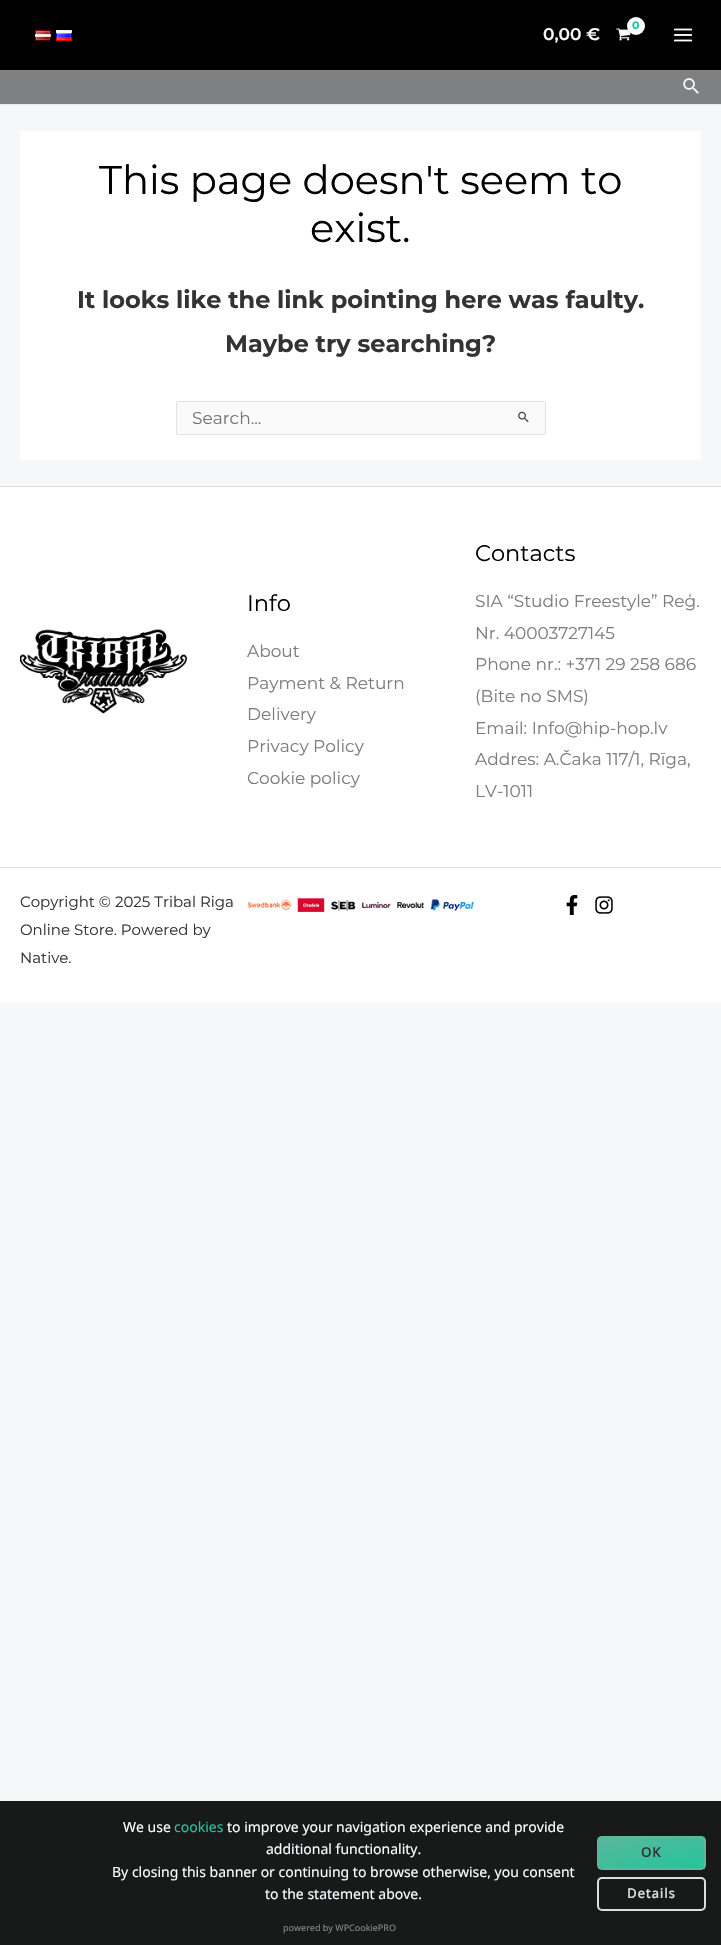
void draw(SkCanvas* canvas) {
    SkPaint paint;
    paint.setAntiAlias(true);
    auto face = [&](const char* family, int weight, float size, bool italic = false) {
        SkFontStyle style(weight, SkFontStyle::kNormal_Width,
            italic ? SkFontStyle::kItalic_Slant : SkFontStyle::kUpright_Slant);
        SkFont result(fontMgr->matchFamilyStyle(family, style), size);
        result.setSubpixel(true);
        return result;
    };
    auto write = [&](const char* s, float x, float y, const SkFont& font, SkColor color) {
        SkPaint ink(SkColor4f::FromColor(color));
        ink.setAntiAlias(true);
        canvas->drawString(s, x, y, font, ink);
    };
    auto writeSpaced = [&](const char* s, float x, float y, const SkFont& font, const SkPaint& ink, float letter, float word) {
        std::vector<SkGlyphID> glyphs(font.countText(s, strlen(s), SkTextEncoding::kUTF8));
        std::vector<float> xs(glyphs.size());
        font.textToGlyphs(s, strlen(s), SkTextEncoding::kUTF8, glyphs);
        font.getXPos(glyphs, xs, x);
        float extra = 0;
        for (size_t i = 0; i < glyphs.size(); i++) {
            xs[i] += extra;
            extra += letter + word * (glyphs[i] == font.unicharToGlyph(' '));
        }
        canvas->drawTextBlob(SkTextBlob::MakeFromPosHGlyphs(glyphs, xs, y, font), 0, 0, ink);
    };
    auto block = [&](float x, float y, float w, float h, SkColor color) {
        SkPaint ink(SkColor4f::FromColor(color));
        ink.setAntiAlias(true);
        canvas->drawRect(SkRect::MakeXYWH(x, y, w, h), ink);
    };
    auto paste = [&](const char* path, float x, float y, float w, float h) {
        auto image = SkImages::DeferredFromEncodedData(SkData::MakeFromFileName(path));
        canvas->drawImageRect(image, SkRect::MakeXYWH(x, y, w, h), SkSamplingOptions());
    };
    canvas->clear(SkColorSetRGB(245, 247, 249));
    block(0, 0, 721, 70, SK_ColorBLACK);
    paste("pic1.png", 35, 30, 16, 11);
    paste("pic2.png", 56, 30, 16, 11);
    paste("pic3.png", 616, 28, 15, 13);
    paint.setColor(SkColorSetARGB(77, 0, 0, 0));
    paint.setMaskFilter(SkMaskFilter::MakeBlur(kNormal_SkBlurStyle, 1.5f));
    canvas->drawRoundRect(SkRect::MakeXYWH(628, 18, 18, 18), 9, 9, paint);
    paint.setMaskFilter(nullptr);
    paint.setColor(SkColorSetRGB(251, 252, 255));
    canvas->drawCircle(636, 26, 9, paint);
    auto kFont1 = face("Montserrat", 700, 11);
    write("0", 632, 29, kFont1, SkColorSetRGB(35, 197, 154));
    auto kFont2 = face("Montserrat", 600, 17);
    write("0,00 €", 543, 40, kFont2, SkColorSetRGB(251, 252, 255));
    paste("pic4.png", 673, 28, 20, 14);
    block(0, 70, 721, 34, SkColorSetRGB(127, 128, 129));
    block(0, 104, 721, 1, SkColorSetRGB(234, 234, 234));
    paste("pic5.png", 683, 78, 16, 16);
    block(20, 131, 681, 329, SK_ColorWHITE);
    auto kFont3 = face("Montserrat", 400, 40);
    write("This page doesn't seem to", 99, 194, kFont3, SK_ColorBLACK);
    write("exist.", 310, 242, kFont3, SK_ColorBLACK);
    auto kFont4 = face("Montserrat", 700, 24);
    write("It looks like the link pointing here was faulty.", 77, 308, kFont4, SkColorSetRGB(51, 51, 51));
    write("Maybe try searching?", 225, 352, kFont4, SkColorSetRGB(51, 51, 51));
    paint.setColor(SkColorSetRGB(250, 250, 250));
    canvas->drawRoundRect(SkRect::MakeXYWH(176.5f, 401.5f, 369, 33), 1.5f, 1.5f, paint);
    paint.setStyle(SkPaint::kStroke_Style);
    paint.setStrokeWidth(1);
    paint.setColor(SkColorSetRGB(226, 226, 226));
    canvas->drawRoundRect(SkRect::MakeXYWH(176.5f, 401.5f, 369, 33), 1.5f, 1.5f, paint);
    auto kFont5 = face("Montserrat", 400, 17);
    write("Search...", 192, 424, kFont5, SkColorSetRGB(117, 117, 117));
    paste("pic6.png", 518, 411, 11, 12);
    block(0, 487, 721, 515, SK_ColorWHITE);
    block(0, 486, 721, 1, SkColorSetRGB(221, 221, 221));
    paste("pic7.png", 20, 629, 167, 85);
    auto kFont6 = face("Montserrat", 400, 22.5f);
    write("Info", 247, 611, kFont6, SK_ColorBLACK);
    write("About", 247, 657, kFont5, SkColorSetRGB(125, 125, 125));
    write("Payment & Return", 247, 689, kFont5, SkColorSetRGB(125, 125, 125));
    write("Delivery", 247, 720, kFont5, SkColorSetRGB(125, 125, 125));
    write("Privacy Policy", 247, 752, kFont5, SkColorSetRGB(125, 125, 125));
    write("Cookie policy", 247, 784, kFont5, SkColorSetRGB(125, 125, 125));
    write("Contacts", 475, 561, kFont6, SK_ColorBLACK);
    write("SIA “Studio Freestyle” Reģ.", 475, 607, kFont5, SkColorSetRGB(125, 125, 125));
    write("Nr. 40003727145", 475, 639, kFont5, SkColorSetRGB(125, 125, 125));
    write("Phone nr.: +371 29 258 686", 475, 670, kFont5, SkColorSetRGB(125, 125, 125));
    write("(Bite no SMS)", 475, 702, kFont5, SkColorSetRGB(125, 125, 125));
    write("Email: Info@hip-hop.lv", 475, 734, kFont5, SkColorSetRGB(125, 125, 125));
    write("Addres: A.Čaka 117/1, Rīga,", 475, 765, kFont5, SkColorSetRGB(125, 125, 125));
    write("LV-1011", 475, 797, kFont5, SkColorSetRGB(125, 125, 125));
    block(0, 867, 721, 1, SkColorSetRGB(221, 221, 221));
    auto kFont7 = face("Montserrat", 400, 15);
    write("Copyright © 2025 Tribal Riga", 20, 907, kFont7, SkColorSetRGB(51, 51, 51));
    write("Online Store. Powered by", 20, 935, kFont7, SkColorSetRGB(51, 51, 51));
    write("Native.", 20, 963, kFont7, SkColorSetRGB(51, 51, 51));
    paste("pic8.png", 247, 898, 227, 14);
    paste("pic9.png", 566, 895, 12, 20);
    paste("pic10.png", 595, 896, 18, 18);
    block(0, 1801, 721, 144, SkColorSetRGB(24, 25, 25));
    auto kFont8 = face("Noto Sans", 400, 14);
    write("We use", 123, 1832, kFont8, SkColorSetRGB(251, 252, 255));
    write("cookies", 174, 1832, kFont8, SkColorSetRGB(35, 197, 154));
    write("to improve your navigation experience and provide", 227, 1832, kFont8, SkColorSetRGB(251, 252, 255));
    write("additional functionality.", 266, 1854, kFont8, SkColorSetRGB(251, 252, 255));
    write("By closing this banner or continuing to browse otherwise, you consent", 112, 1877, kFont8, SkColorSetRGB(251, 252, 255));
    write("to the statement above.", 265, 1899, kFont8, SkColorSetRGB(251, 252, 255));
    canvas->save();
    canvas->clipPath(SkPathBuilder().moveTo(602, 1836).lineTo(701, 1836).cubicTo(704, 1836, 706, 1838, 706, 1841).lineTo(706, 1865).cubicTo(706, 1868, 704, 1870, 701, 1870).lineTo(602, 1870).cubicTo(599, 1870, 597, 1868, 597, 1865).lineTo(597, 1841).cubicTo(597, 1838, 599, 1836, 602, 1836).close().detach(), true);
    paint.setStyle(SkPaint::kFill_Style);
    {
        const SkColor colors[] = {SkColorSetRGB(35, 197, 154), SkColorSetRGB(91, 183, 158)};
        const float stops[] = {0, 1};
        const SkPoint ends[] = {{554, 1851}, {539, 1795}};
        paint.setShader(SkGradientShader::MakeLinear(ends, colors, stops, 2, SkTileMode::kClamp));
        paint.setAlpha(255);
    }
    canvas->drawRect(SkRect::MakeXYWH(597, 1837, 2, 1), paint);
    {
        const SkColor colors[] = {SkColorSetRGB(35, 197, 154), SkColorSetRGB(91, 183, 158)};
        const float stops[] = {0, 1};
        const SkPoint ends[] = {{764, 1851}, {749, 1795}};
        paint.setShader(SkGradientShader::MakeLinear(ends, colors, stops, 2, SkTileMode::kClamp));
        paint.setAlpha(255);
    }
    canvas->drawRect(SkRect::MakeXYWH(704, 1837, 2, 1), paint);
    canvas->restore();
    {
        const SkColor colors[] = {SkColorSetRGB(35, 197, 154), SkColorSetRGB(91, 183, 158)};
        const float stops[] = {0, 1};
        const SkPoint ends[] = {{659, 1881}, {644, 1825}};
        paint.setShader(SkGradientShader::MakeLinear(ends, colors, stops, 2, SkTileMode::kClamp));
        paint.setAlpha(255);
    }
    canvas->drawRect(SkRect::MakeXYWH(599, 1838, 105, 30), paint);
    canvas->save();
    canvas->clipPath(SkPathBuilder().moveTo(602, 1836).lineTo(701, 1836).cubicTo(704, 1836, 706, 1838, 706, 1841).lineTo(706, 1865).cubicTo(706, 1868, 704, 1870, 701, 1870).lineTo(602, 1870).cubicTo(599, 1870, 597, 1868, 597, 1865).lineTo(597, 1841).cubicTo(597, 1838, 599, 1836, 602, 1836).close().detach(), true);
    {
        const SkColor colors[] = {SkColorSetRGB(35, 197, 154), SkColorSetRGB(91, 183, 158)};
        const float stops[] = {0, 1};
        const SkPoint ends[] = {{554, 1911}, {539, 1855}};
        paint.setShader(SkGradientShader::MakeLinear(ends, colors, stops, 2, SkTileMode::kClamp));
        paint.setAlpha(255);
    }
    canvas->drawRect(SkRect::MakeXYWH(597, 1868, 2, 1), paint);
    {
        const SkColor colors[] = {SkColorSetRGB(35, 197, 154), SkColorSetRGB(91, 183, 158)};
        const float stops[] = {0, 1};
        const SkPoint ends[] = {{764, 1911}, {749, 1855}};
        paint.setShader(SkGradientShader::MakeLinear(ends, colors, stops, 2, SkTileMode::kClamp));
        paint.setAlpha(255);
    }
    canvas->drawRect(SkRect::MakeXYWH(704, 1868, 2, 1), paint);
    canvas->restore();
    paint.setStyle(SkPaint::kStroke_Style);
    paint.setStrokeWidth(2);
    paint.setShader(nullptr);
    paint.setColor(SkColorSetRGB(91, 183, 158));
    canvas->drawRoundRect(SkRect::MakeXYWH(598, 1837, 107, 32), 4, 4, paint);
    auto kFont9 = face("Noto Sans", 700, 13);
    paint.setStyle(SkPaint::kFill_Style);
    paint.setColor(SkColorSetRGB(51, 51, 51));
    writeSpaced("OK", 641, 1857, kFont9, paint, 1, 0);
    paint.setStyle(SkPaint::kStroke_Style);
    paint.setColor(SkColorSetRGB(221, 221, 221));
    canvas->drawRoundRect(SkRect::MakeXYWH(598, 1878, 107, 32), 4, 4, paint);
    paint.setStyle(SkPaint::kFill_Style);
    writeSpaced("Details", 627, 1898, kFont9, paint, 1, 0);
    auto kFont10 = face("Noto Sans", 400, 9);
    write("powered by WPCookiePRO", 283, 1931, kFont10, SkColorSetRGB(136, 136, 136));
}
